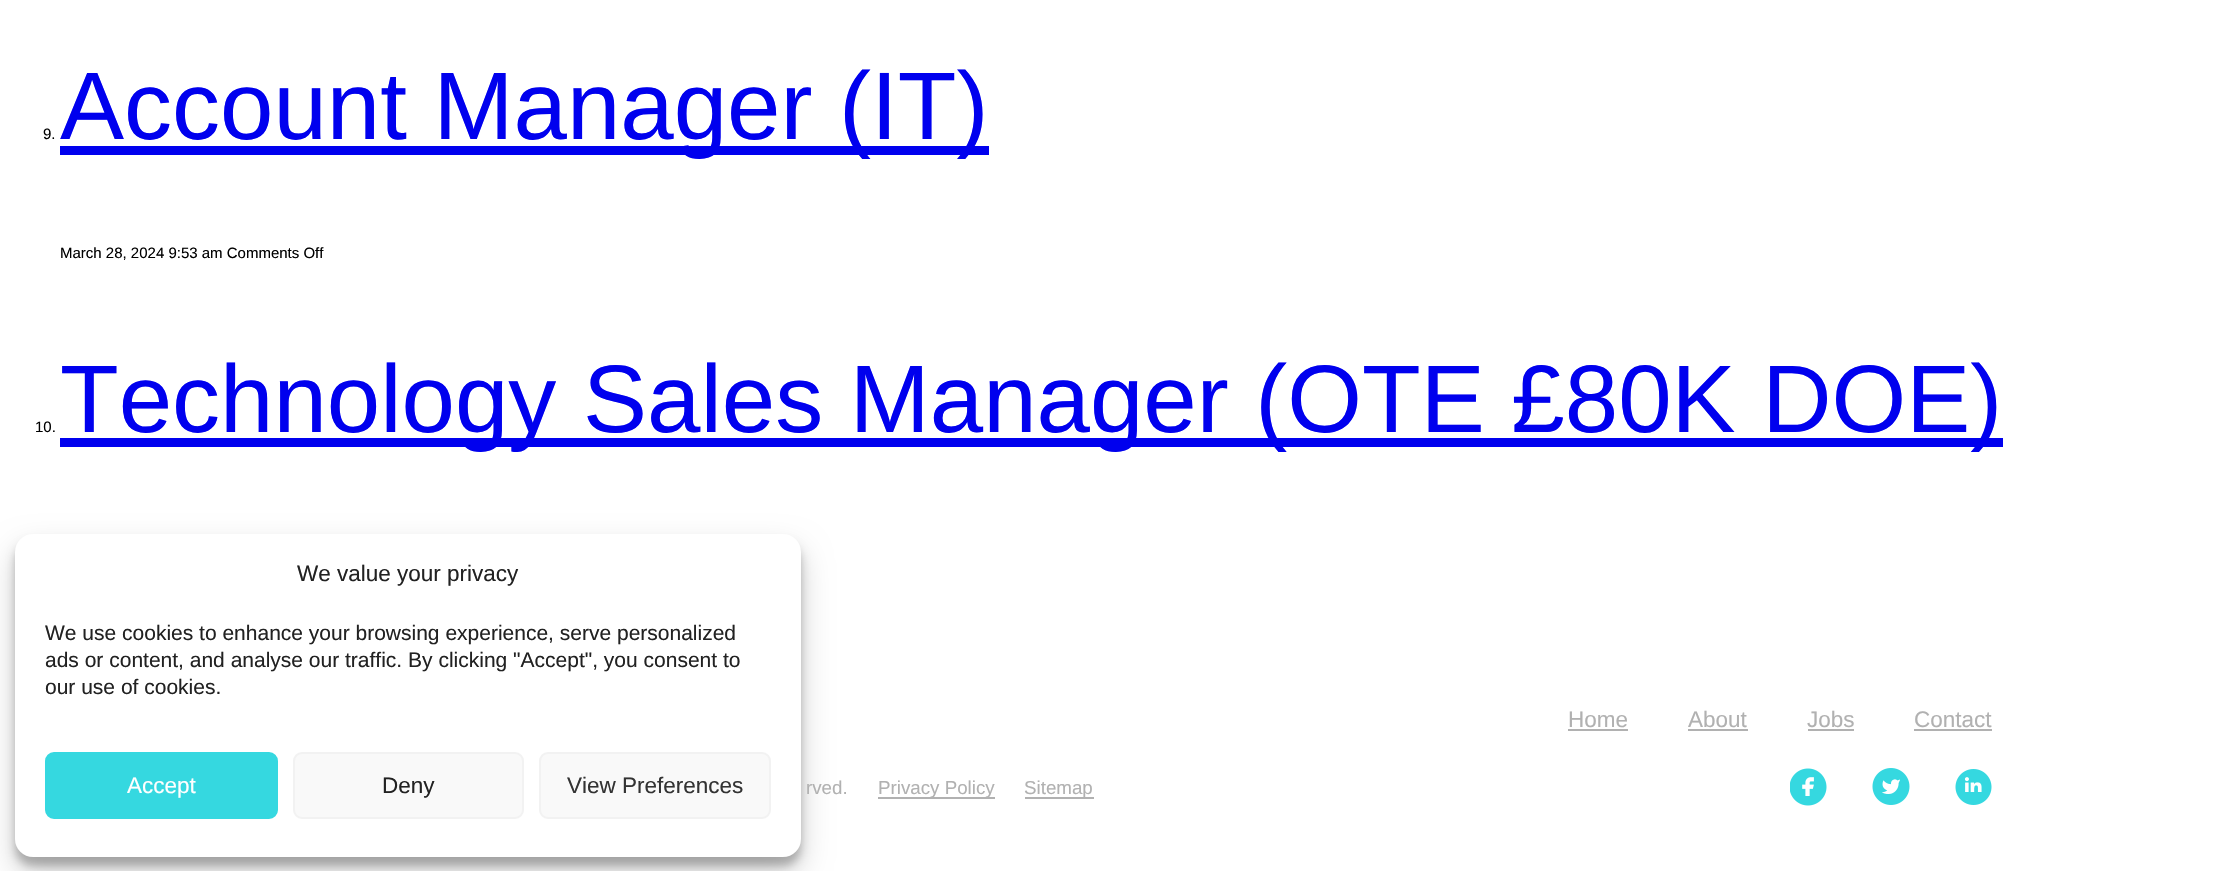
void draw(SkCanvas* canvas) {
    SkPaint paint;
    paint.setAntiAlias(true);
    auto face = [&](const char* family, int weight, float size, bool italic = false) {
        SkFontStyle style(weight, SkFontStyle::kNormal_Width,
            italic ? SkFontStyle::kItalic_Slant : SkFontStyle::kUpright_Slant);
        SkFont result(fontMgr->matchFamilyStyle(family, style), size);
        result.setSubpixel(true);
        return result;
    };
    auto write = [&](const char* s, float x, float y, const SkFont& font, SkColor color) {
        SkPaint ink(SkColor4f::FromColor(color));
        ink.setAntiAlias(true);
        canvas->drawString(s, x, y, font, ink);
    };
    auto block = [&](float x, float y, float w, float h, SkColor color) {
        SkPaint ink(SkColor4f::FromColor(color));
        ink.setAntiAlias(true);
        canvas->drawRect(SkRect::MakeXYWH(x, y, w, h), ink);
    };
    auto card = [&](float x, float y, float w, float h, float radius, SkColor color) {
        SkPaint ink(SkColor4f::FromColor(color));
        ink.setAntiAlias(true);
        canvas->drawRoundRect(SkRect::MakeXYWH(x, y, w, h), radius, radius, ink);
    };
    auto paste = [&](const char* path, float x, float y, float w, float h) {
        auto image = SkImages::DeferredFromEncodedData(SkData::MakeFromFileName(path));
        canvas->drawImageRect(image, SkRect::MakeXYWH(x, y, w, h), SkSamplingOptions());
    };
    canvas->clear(SK_ColorWHITE);
    auto kFont1 = face("Liberation Sans", 400, 15);
    write("9.", 43, 139, kFont1, SK_ColorBLACK);
    block(60, 146, 929, 9, SkColorSetRGB(0, 0, 238));
    auto kFont2 = face("Liberation Sans", 400, 96);
    write("Account Manager (IT)", 60, 139, kFont2, SkColorSetRGB(0, 0, 238));
    write("March 28, 2024 9:53 am Comments Off", 60, 258, kFont1, SK_ColorBLACK);
    write("10.", 35, 432, kFont1, SK_ColorBLACK);
    block(60, 438, 1943, 9, SkColorSetRGB(0, 0, 238));
    write("Technology Sales Manager (OTE £80K DOE)", 60, 432, kFont2, SkColorSetRGB(0, 0, 238));
    paint.setColor(SkColorSetARGB(59, 0, 0, 0));
    paint.setMaskFilter(SkMaskFilter::MakeBlur(kNormal_SkBlurStyle, 4.5f));
    canvas->drawRoundRect(SkRect::MakeXYWH(15, 543, 786, 323), 18, 18, paint);
    paint.setMaskFilter(nullptr);
    paint.setColor(SkColorSetARGB(48, 0, 0, 0));
    paint.setMaskFilter(SkMaskFilter::MakeBlur(kNormal_SkBlurStyle, 15));
    canvas->drawRoundRect(SkRect::MakeXYWH(15, 549, 786, 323), 18, 18, paint);
    paint.setMaskFilter(nullptr);
    card(15, 534, 786, 323, 18, SK_ColorWHITE);
    auto kFont3 = face("Liberation Sans", 400, 22.5f);
    write("We value your privacy", 297, 581, kFont3, SkColorSetRGB(34, 34, 34));
    auto kFont4 = face("Liberation Sans", 400, 21);
    write("We use cookies to enhance your browsing experience, serve personalized", 45, 640, kFont4, SkColorSetRGB(34, 34, 34));
    write("ads or content, and analyse our traffic. By clicking \"Accept\", you consent to", 45, 667, kFont4, SkColorSetRGB(34, 34, 34));
    write("our use of cookies.", 45, 694, kFont4, SkColorSetRGB(34, 34, 34));
    paint.setColor(SkColorSetRGB(53, 216, 224));
    canvas->drawRoundRect(SkRect::MakeXYWH(46, 753, 231, 65), 8, 8, paint);
    paint.setStyle(SkPaint::kStroke_Style);
    paint.setStrokeWidth(2);
    canvas->drawRoundRect(SkRect::MakeXYWH(46, 753, 231, 65), 8, 8, paint);
    write("Accept", 127, 793, kFont3, SK_ColorWHITE);
    paint.setStyle(SkPaint::kFill_Style);
    paint.setColor(SkColorSetRGB(249, 249, 249));
    canvas->drawRoundRect(SkRect::MakeXYWH(294, 753, 229, 65), 8, 8, paint);
    paint.setStyle(SkPaint::kStroke_Style);
    paint.setColor(SkColorSetRGB(242, 242, 242));
    canvas->drawRoundRect(SkRect::MakeXYWH(294, 753, 229, 65), 8, 8, paint);
    write("Deny", 382, 793, kFont3, SkColorSetRGB(34, 34, 34));
    paint.setStyle(SkPaint::kFill_Style);
    paint.setColor(SkColorSetRGB(249, 249, 249));
    canvas->drawRoundRect(SkRect::MakeXYWH(540, 753, 230, 65), 8, 8, paint);
    paint.setStyle(SkPaint::kStroke_Style);
    paint.setColor(SkColorSetRGB(242, 242, 242));
    canvas->drawRoundRect(SkRect::MakeXYWH(540, 753, 230, 65), 8, 8, paint);
    write("View Preferences", 567, 793, kFont3, SkColorSetRGB(51, 51, 51));
    write("Home", 1568, 727, kFont3, SkColorSetRGB(177, 177, 177));
    block(1568, 729, 60, 2, SkColorSetRGB(177, 177, 177));
    write("About", 1688, 727, kFont3, SkColorSetRGB(177, 177, 177));
    block(1688, 729, 60, 2, SkColorSetRGB(177, 177, 177));
    write("Jobs", 1807, 727, kFont3, SkColorSetRGB(177, 177, 177));
    block(1808, 729, 46, 2, SkColorSetRGB(177, 177, 177));
    write("Contact", 1914, 727, kFont3, SkColorSetRGB(177, 177, 177));
    block(1914, 729, 78, 2, SkColorSetRGB(177, 177, 177));
    auto kFont5 = face("Liberation Sans", 400, 18.75f);
    write("rved.", 806, 794, kFont5, SkColorSetRGB(177, 177, 177));
    block(878, 797, 117, 2, SkColorSetRGB(177, 177, 177));
    write("Privacy Policy", 878, 794, kFont5, SkColorSetRGB(177, 177, 177));
    block(1025, 797, 69, 2, SkColorSetRGB(177, 177, 177));
    write("Sitemap", 1024, 794, kFont5, SkColorSetRGB(177, 177, 177));
    paste("pic1.png", 1790, 768, 37, 38);
    paste("pic2.png", 1872, 768, 38, 37);
    paste("pic3.png", 1955, 769, 37, 36);
}
